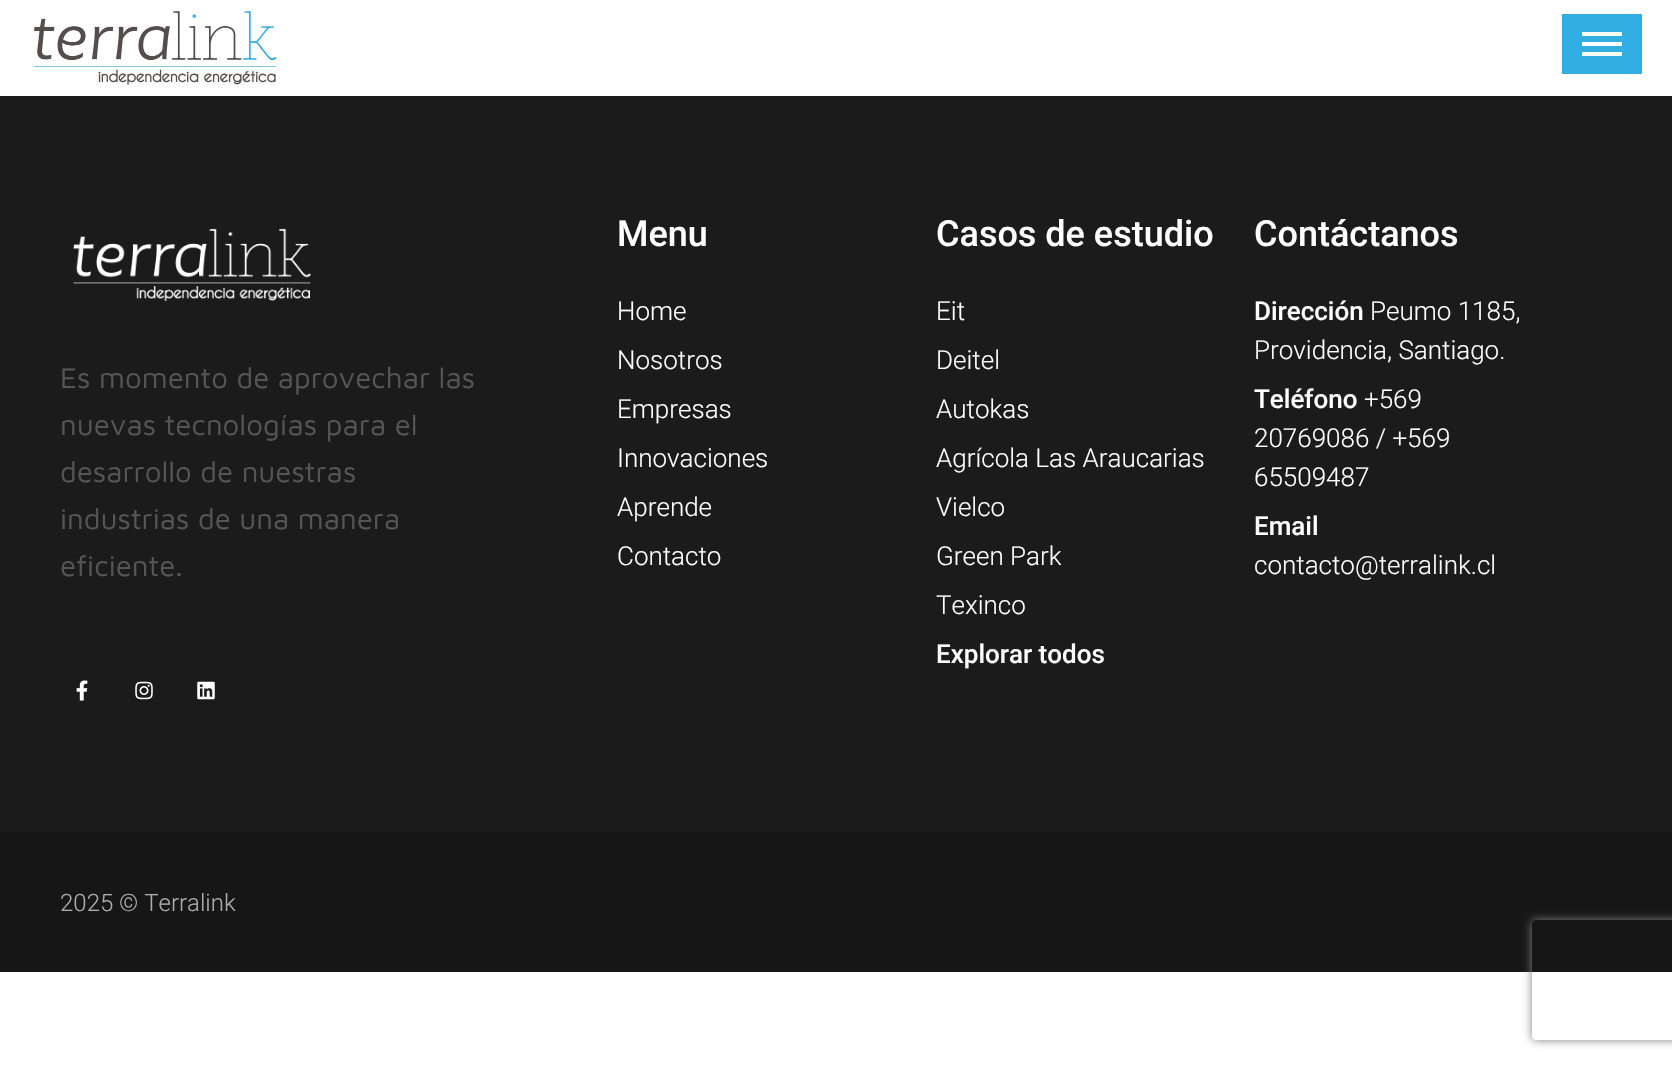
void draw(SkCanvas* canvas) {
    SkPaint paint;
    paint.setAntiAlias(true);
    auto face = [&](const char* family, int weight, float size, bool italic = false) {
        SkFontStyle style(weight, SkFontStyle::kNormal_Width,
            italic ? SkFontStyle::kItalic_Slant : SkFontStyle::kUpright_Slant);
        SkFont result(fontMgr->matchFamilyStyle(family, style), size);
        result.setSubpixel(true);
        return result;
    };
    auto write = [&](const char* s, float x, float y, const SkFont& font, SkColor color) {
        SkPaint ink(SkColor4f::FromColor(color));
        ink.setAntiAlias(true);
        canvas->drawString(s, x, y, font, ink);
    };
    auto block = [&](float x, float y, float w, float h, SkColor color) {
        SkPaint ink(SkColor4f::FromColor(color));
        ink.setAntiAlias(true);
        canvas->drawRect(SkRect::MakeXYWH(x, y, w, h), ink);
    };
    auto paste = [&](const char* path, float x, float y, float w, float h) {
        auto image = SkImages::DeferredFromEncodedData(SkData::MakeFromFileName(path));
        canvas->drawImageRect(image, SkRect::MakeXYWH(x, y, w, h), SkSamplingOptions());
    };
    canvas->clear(SK_ColorWHITE);
    paste("pic1.png", 33, 11, 244, 74);
    block(1562, 14, 80, 60, SkColorSetRGB(50, 174, 227));
    block(1582, 32, 40, 4, SK_ColorWHITE);
    block(1582, 42, 40, 4, SK_ColorWHITE);
    block(1582, 52, 40, 4, SK_ColorWHITE);
    block(0, 96, 1672, 736, SkColorSetRGB(27, 27, 27));
    paste("pic2.png", 73, 228, 238, 74);
    auto kFont1 = face("Maven Pro", 400, 29.4f);
    write("Es momento de aprovechar las", 60, 388, kFont1, SkColorSetRGB(85, 85, 85));
    write("nuevas tecnologías para el", 60, 435, kFont1, SkColorSetRGB(85, 85, 85));
    write("desarrollo de nuestras", 60, 482, kFont1, SkColorSetRGB(85, 85, 85));
    write("industrias de una manera", 60, 529, kFont1, SkColorSetRGB(85, 85, 85));
    write("eficiente.", 60, 576, kFont1, SkColorSetRGB(85, 85, 85));
    paste("pic3.png", 76, 680, 12, 21);
    paste("pic4.png", 135, 681, 18, 19);
    paste("pic5.png", 197, 681, 18, 19);
    auto kFont2 = face("Roboto", 500, 36);
    write("Menu", 617, 246, kFont2, SK_ColorWHITE);
    auto kFont3 = face("Roboto", 300, 26);
    write("Home", 617, 320, kFont3, SK_ColorWHITE);
    write("Nosotros", 617, 369, kFont3, SK_ColorWHITE);
    write("Empresas", 617, 418, kFont3, SK_ColorWHITE);
    write("Innovaciones", 617, 467, kFont3, SK_ColorWHITE);
    write("Aprende", 617, 516, kFont3, SK_ColorWHITE);
    write("Contacto", 617, 565, kFont3, SK_ColorWHITE);
    write("Casos de estudio", 936, 246, kFont2, SK_ColorWHITE);
    write("Eit", 936, 320, kFont3, SK_ColorWHITE);
    write("Deitel", 936, 369, kFont3, SK_ColorWHITE);
    write("Autokas", 936, 418, kFont3, SK_ColorWHITE);
    write("Agrícola Las Araucarias", 936, 467, kFont3, SK_ColorWHITE);
    write("Vielco", 936, 516, kFont3, SK_ColorWHITE);
    write("Green Park", 936, 565, kFont3, SK_ColorWHITE);
    write("Texinco", 936, 614, kFont3, SK_ColorWHITE);
    auto kFont4 = face("Roboto", 500, 26);
    write("Explorar todos", 936, 663, kFont4, SK_ColorWHITE);
    write("Contáctanos", 1254, 246, kFont2, SK_ColorWHITE);
    write("Dirección", 1254, 320, kFont4, SK_ColorWHITE);
    write("Peumo 1185,", 1370, 320, kFont3, SK_ColorWHITE);
    write("Providencia, Santiago.", 1254, 359, kFont3, SK_ColorWHITE);
    write("Teléfono", 1254, 408, kFont4, SK_ColorWHITE);
    write("+569", 1364, 408, kFont3, SK_ColorWHITE);
    write("20769086 / +569", 1254, 447, kFont3, SK_ColorWHITE);
    write("65509487", 1254, 486, kFont3, SK_ColorWHITE);
    write("Email", 1254, 535, kFont4, SK_ColorWHITE);
    write("contacto@terralink.cl", 1254, 574, kFont3, SK_ColorWHITE);
    block(0, 832, 1672, 140, SkColorSetRGB(22, 22, 22));
    auto kFont5 = face("Roboto", 300, 24);
    write("2025 © Terralink", 60, 911, kFont5, SkColorSetRGB(173, 173, 173));
    canvas->save();
    canvas->clipPath(SkPathBuilder(SkPathFillType::kEvenOdd).moveTo(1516, 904).lineTo(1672, 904).lineTo(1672, 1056).lineTo(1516, 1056).close().moveTo(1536, 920).lineTo(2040, 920).cubicTo(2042, 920, 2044, 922, 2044, 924).lineTo(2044, 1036).cubicTo(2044, 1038, 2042, 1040, 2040, 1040).lineTo(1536, 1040).cubicTo(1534, 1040, 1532, 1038, 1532, 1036).lineTo(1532, 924).cubicTo(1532, 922, 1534, 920, 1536, 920).close().detach(), true);
    paint.setColor(SkColorSetRGB(128, 128, 128));
    paint.setMaskFilter(SkMaskFilter::MakeBlur(kNormal_SkBlurStyle, 5));
    canvas->drawRoundRect(SkRect::MakeXYWH(1532, 920, 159, 120), 4, 4, paint);
    paint.setMaskFilter(nullptr);
    canvas->restore();
}
